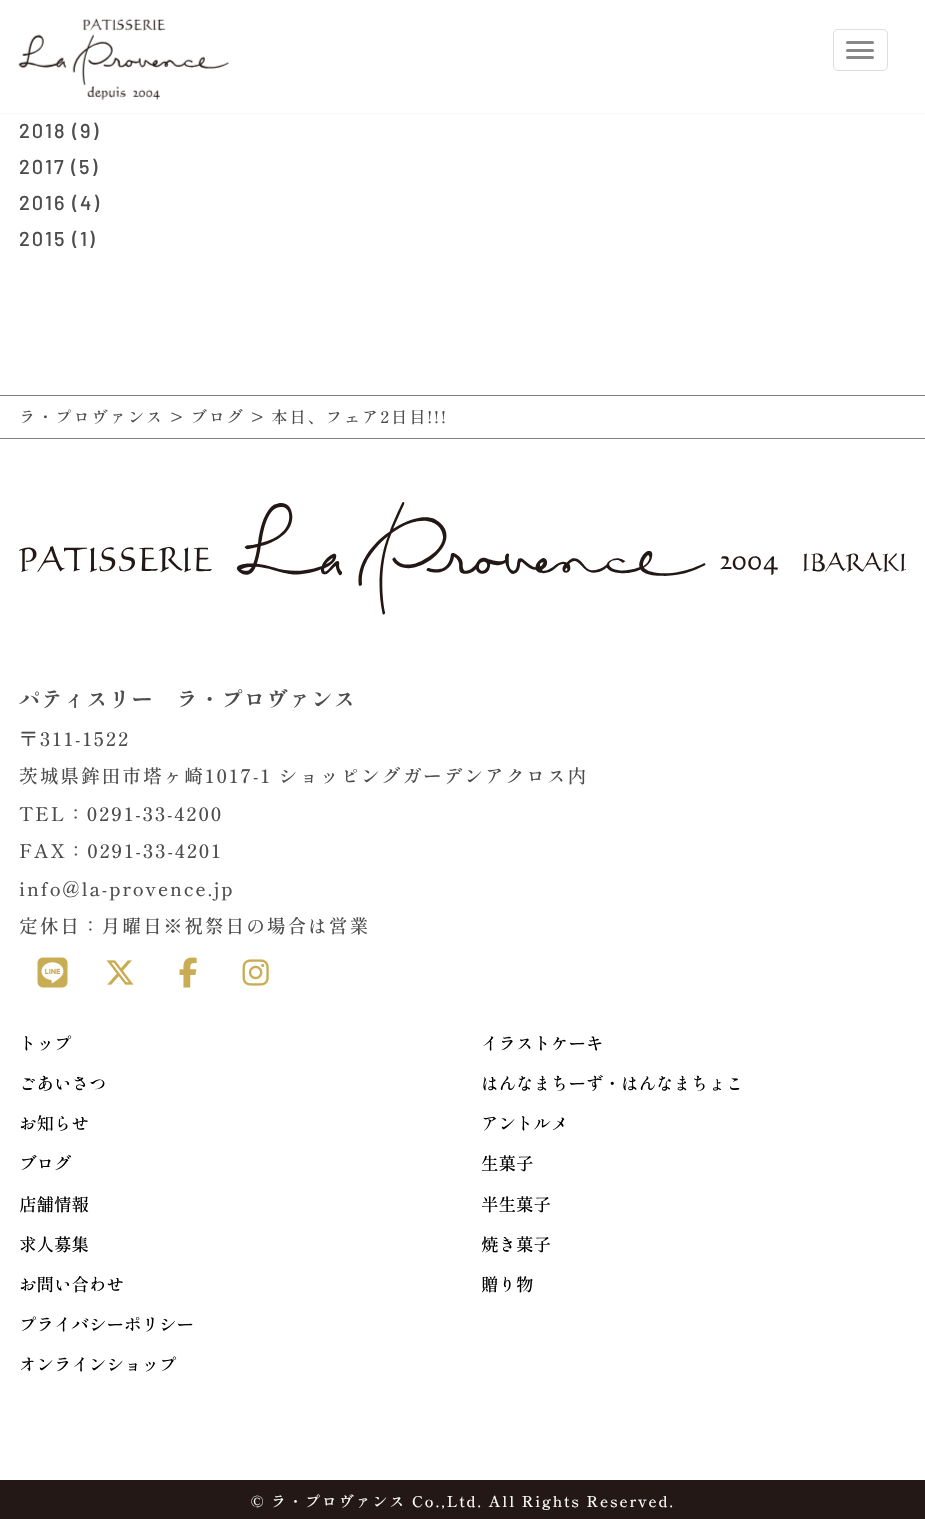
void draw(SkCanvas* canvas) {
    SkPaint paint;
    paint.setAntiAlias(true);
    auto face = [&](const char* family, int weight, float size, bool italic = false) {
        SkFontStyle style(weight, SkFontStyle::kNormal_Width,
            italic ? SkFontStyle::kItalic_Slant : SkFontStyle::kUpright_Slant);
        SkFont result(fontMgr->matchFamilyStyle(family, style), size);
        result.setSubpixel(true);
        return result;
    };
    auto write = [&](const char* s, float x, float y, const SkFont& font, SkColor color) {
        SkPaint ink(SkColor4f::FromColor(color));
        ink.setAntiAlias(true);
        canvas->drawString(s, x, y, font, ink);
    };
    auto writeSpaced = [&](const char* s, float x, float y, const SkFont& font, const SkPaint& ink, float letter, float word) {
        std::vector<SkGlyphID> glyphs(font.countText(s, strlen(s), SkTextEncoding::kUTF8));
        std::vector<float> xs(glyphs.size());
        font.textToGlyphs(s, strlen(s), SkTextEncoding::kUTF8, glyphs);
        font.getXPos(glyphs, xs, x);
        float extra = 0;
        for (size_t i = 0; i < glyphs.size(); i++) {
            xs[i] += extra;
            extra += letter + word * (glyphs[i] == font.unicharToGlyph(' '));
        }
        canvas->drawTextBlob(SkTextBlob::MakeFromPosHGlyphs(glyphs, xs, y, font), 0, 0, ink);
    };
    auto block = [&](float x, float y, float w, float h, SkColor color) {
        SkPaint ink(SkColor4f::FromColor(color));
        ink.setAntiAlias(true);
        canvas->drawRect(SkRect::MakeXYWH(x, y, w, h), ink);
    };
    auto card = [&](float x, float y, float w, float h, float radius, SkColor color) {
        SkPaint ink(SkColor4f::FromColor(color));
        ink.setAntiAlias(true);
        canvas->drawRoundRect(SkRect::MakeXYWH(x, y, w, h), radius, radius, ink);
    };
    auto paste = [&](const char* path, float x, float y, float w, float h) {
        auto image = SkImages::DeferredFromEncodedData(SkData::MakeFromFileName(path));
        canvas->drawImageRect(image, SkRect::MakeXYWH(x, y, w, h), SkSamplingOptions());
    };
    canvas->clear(SK_ColorWHITE);
    block(0, 113, 925, 1, SkColorSetRGB(250, 249, 245));
    paste("pic1.png", 18, 18, 211, 82);
    paint.setStyle(SkPaint::kStroke_Style);
    paint.setStrokeWidth(1);
    paint.setColor(SkColorSetRGB(221, 221, 221));
    canvas->drawRoundRect(SkRect::MakeXYWH(833.5f, 29.5f, 54, 41), 4.5f, 4.5f, paint);
    card(846, 41, 28, 3, 1.5f, SkColorSetRGB(136, 136, 136));
    card(846, 49, 28, 3, 1.5f, SkColorSetRGB(136, 136, 136));
    card(846, 56, 28, 3, 1.5f, SkColorSetRGB(136, 136, 136));
    auto kFont1 = face("Barlow", 500, 20);
    paint.setStyle(SkPaint::kFill_Style);
    paint.setColor(SkColorSetRGB(77, 77, 77));
    writeSpaced("2018 (9)", 19, 138, kFont1, paint, 1.9f, 0);
    writeSpaced("2017 (5)", 19, 174, kFont1, paint, 1.9f, 0);
    writeSpaced("2016 (4)", 19, 210, kFont1, paint, 1.9f, 0);
    writeSpaced("2015 (1)", 19, 246, kFont1, paint, 1.9f, 0);
    block(0, 395, 925, 1, SkColorSetRGB(128, 128, 128));
    block(0, 438, 925, 1, SkColorSetRGB(128, 128, 128));
    auto kFont2 = face("Shippori Mincho B1", 500, 16.25f);
    writeSpaced("ラ・プロヴァンス > ブログ > 本日、フェア2日目!!!", 19, 423, kFont2, paint, 1.9f, 0);
    paste("pic2.png", 19, 502, 887, 113);
    auto kFont3 = face("Shippori Mincho B1", 700, 21.25f);
    writeSpaced("パティスリー　ラ・プロヴァンス", 19, 707, kFont3, paint, 1.25f, 0);
    auto kFont4 = face("Shippori Mincho B1", 500, 18.75f);
    writeSpaced("〒311-1522", 19, 746, kFont4, paint, 1.9f, 0);
    writeSpaced("茨城県鉾田市塔ヶ崎1017-1 ショッピングガーデンアクロス内", 19, 783, kFont4, paint, 1.9f, 0);
    writeSpaced("TEL：0291-33-4200", 19, 821, kFont4, paint, 1.9f, 0);
    writeSpaced("FAX：0291-33-4201", 19, 858, kFont4, paint, 1.9f, 0);
    writeSpaced("info@la-provence.jp", 19, 896, kFont4, paint, 1.9f, 0);
    writeSpaced("定休日：月曜日※祝祭日の場合は営業", 19, 933, kFont4, paint, 1.9f, 0);
    paste("pic3.png", 37, 957, 31, 31);
    paste("pic4.png", 106, 960, 28, 25);
    paste("pic5.png", 179, 957, 18, 31);
    paste("pic6.png", 242, 959, 27, 27);
    auto kFont5 = face("Shippori Mincho B1", 500, 17.5f);
    write("トップ", 19, 1050, kFont5, SK_ColorBLACK);
    write("ごあいさつ", 19, 1090, kFont5, SK_ColorBLACK);
    write("お知らせ", 19, 1130, kFont5, SK_ColorBLACK);
    write("ブログ", 19, 1170, kFont5, SK_ColorBLACK);
    write("店舗情報", 19, 1211, kFont5, SK_ColorBLACK);
    write("求人募集", 19, 1251, kFont5, SK_ColorBLACK);
    write("お問い合わせ", 19, 1291, kFont5, SK_ColorBLACK);
    write("プライバシーポリシー", 19, 1331, kFont5, SK_ColorBLACK);
    write("オンラインショップ", 19, 1371, kFont5, SK_ColorBLACK);
    write("イラストケーキ", 481, 1050, kFont5, SK_ColorBLACK);
    write("はんなまちーず・はんなまちょこ", 481, 1090, kFont5, SK_ColorBLACK);
    write("アントルメ", 481, 1130, kFont5, SK_ColorBLACK);
    write("生菓子", 481, 1170, kFont5, SK_ColorBLACK);
    write("半生菓子", 481, 1211, kFont5, SK_ColorBLACK);
    write("焼き菓子", 481, 1251, kFont5, SK_ColorBLACK);
    write("贈り物", 481, 1291, kFont5, SK_ColorBLACK);
    block(0, 1480, 925, 39, SkColorSetRGB(35, 24, 21));
    auto kFont6 = face("Shippori Mincho B1", 500, 15);
    paint.setColor(SK_ColorWHITE);
    writeSpaced("© ラ・プロヴァンス Co.,Ltd. All Rights Reserved.", 251, 1507, kFont6, paint, 1.9f, 0);
}
